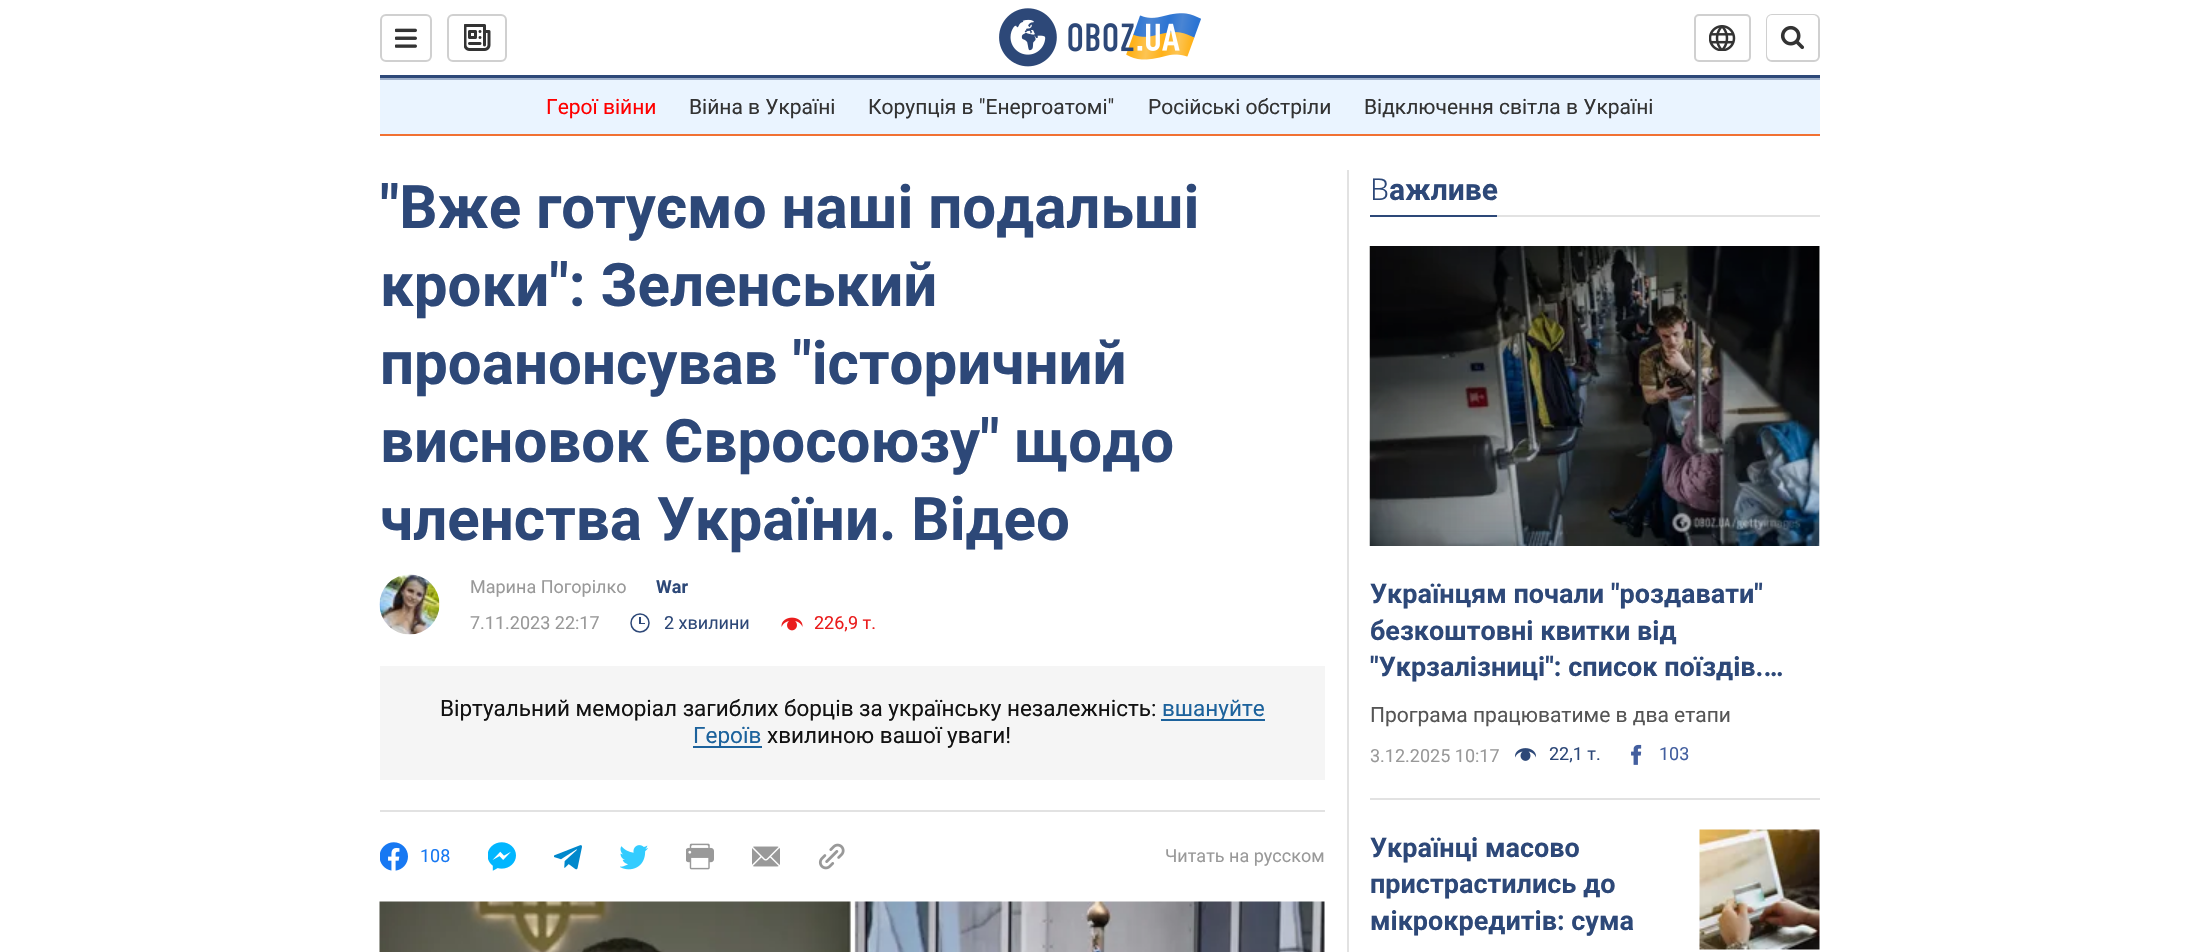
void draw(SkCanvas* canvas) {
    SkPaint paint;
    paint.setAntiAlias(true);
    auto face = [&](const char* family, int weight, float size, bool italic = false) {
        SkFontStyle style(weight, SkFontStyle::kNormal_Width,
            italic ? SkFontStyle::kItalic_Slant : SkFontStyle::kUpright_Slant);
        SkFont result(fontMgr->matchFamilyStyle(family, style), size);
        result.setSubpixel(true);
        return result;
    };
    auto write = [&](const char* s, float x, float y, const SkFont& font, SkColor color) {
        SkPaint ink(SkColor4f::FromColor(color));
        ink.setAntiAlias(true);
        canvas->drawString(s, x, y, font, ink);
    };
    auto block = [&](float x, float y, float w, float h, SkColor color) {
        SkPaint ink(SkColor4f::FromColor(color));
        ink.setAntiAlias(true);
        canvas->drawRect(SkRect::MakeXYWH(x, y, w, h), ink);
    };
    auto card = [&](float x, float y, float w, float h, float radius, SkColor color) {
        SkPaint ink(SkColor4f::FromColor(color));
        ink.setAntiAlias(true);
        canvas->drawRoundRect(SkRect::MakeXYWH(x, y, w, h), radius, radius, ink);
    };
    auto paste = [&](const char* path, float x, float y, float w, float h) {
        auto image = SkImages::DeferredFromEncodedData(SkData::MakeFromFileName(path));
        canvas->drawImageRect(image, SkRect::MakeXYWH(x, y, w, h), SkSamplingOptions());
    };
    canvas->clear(SK_ColorWHITE);
    block(380, 75, 1440, 3, SkColorSetRGB(45, 72, 120));
    paint.setStyle(SkPaint::kStroke_Style);
    paint.setStrokeWidth(2);
    paint.setColor(SkColorSetRGB(208, 208, 208));
    canvas->drawRoundRect(SkRect::MakeXYWH(381, 15, 50, 46), 5, 5, paint);
    paste("pic1.png", 395, 28, 22, 20);
    canvas->drawRoundRect(SkRect::MakeXYWH(448, 15, 58, 46), 5, 5, paint);
    paste("pic2.png", 464, 24, 27, 27);
    paste("pic3.png", 999, 8, 202, 59);
    canvas->drawRoundRect(SkRect::MakeXYWH(1695, 15, 55, 46), 4, 4, paint);
    paste("pic4.png", 1709, 25, 27, 26);
    canvas->drawRoundRect(SkRect::MakeXYWH(1767, 15, 52, 46), 5, 5, paint);
    card(1767, 15, 51, 45, 5, SK_ColorWHITE);
    paste("pic5.png", 1780, 25, 25, 25);
    block(380, 80, 1440, 54, SkColorSetRGB(234, 244, 255));
    block(380, 78, 1440, 2, SkColorSetRGB(158, 175, 201));
    block(380, 134, 1440, 2, SkColorSetRGB(241, 113, 50));
    auto kFont1 = face("Roboto", 400, 21);
    write("Герої війни", 546, 114, kFont1, SkColorSetRGB(255, 0, 0));
    write("Війна в Україні", 689, 114, kFont1, SkColorSetRGB(51, 51, 51));
    write("Корупція в \"Енергоатомі\"", 868, 114, kFont1, SkColorSetRGB(51, 51, 51));
    write("Російські обстріли", 1148, 114, kFont1, SkColorSetRGB(51, 51, 51));
    write("Відключення світла в Україні", 1364, 114, kFont1, SkColorSetRGB(51, 51, 51));
    block(380, 810, 945, 2, SkColorSetRGB(226, 226, 226));
    auto kFont2 = face("Roboto", 700, 60);
    write("\"Вже готуємо наші подальші", 380, 228, kFont2, SkColorSetRGB(45, 72, 120));
    write("кроки\": Зеленський", 380, 306, kFont2, SkColorSetRGB(45, 72, 120));
    write("проанонсував \"історичний", 380, 384, kFont2, SkColorSetRGB(45, 72, 120));
    write("висновок Євросоюзу\" щодо", 380, 462, kFont2, SkColorSetRGB(45, 72, 120));
    write("членства України. Відео", 380, 540, kFont2, SkColorSetRGB(45, 72, 120));
    paste("pic6.png", 379, 574, 61, 61);
    auto kFont3 = face("Roboto", 400, 18);
    write("Марина Погорілко", 470, 593, kFont3, SkColorSetRGB(153, 153, 153));
    auto kFont4 = face("Roboto", 700, 18);
    write("War", 656, 593, kFont4, SkColorSetRGB(45, 72, 120));
    write("7.11.2023 22:17", 470, 629, kFont3, SkColorSetRGB(153, 153, 153));
    paint.setStrokeWidth(1.5f);
    paint.setColor(SkColorSetRGB(45, 72, 120));
    canvas->drawCircle(640, 623, 9, paint);
    block(639, 623, 6, 1, SkColorSetRGB(45, 72, 120));
    block(639, 617, 2, 7, SkColorSetRGB(45, 72, 120));
    write("2 хвилини", 664, 629, kFont3, SkColorSetRGB(45, 72, 120));
    paste("pic7.png", 781, 617, 22, 14);
    write("226,9 т.", 814, 629, kFont3, SkColorSetRGB(234, 29, 29));
    block(380, 666, 945, 114, SkColorSetRGB(245, 245, 245));
    auto kFont5 = face("Roboto", 400, 22.5f);
    write("Віртуальний меморіал загиблих борців за українську незалежність:", 440, 716, kFont5, SkColorSetRGB(18, 18, 18));
    block(1161, 719, 104, 2, SkColorSetRGB(28, 98, 156));
    write("вшануйте", 1162, 716, kFont5, SkColorSetRGB(28, 98, 156));
    block(693, 746, 69, 2, SkColorSetRGB(28, 98, 156));
    write("Героїв", 693, 743, kFont5, SkColorSetRGB(28, 98, 156));
    write("хвилиною вашої уваги!", 767, 743, kFont5, SkColorSetRGB(18, 18, 18));
    paste("pic8.png", 380, 842, 28, 29);
    write("108", 420, 862, kFont3, SkColorSetRGB(23, 120, 242));
    paste("pic9.png", 488, 842, 28, 29);
    paste("pic10.png", 554, 845, 28, 25);
    paste("pic11.png", 620, 845, 28, 25);
    paste("pic12.png", 686, 843, 28, 27);
    paste("pic13.png", 752, 846, 28, 21);
    paste("pic14.png", 818, 843, 27, 27);
    write("Читать на русском", 1165, 862, kFont3, SkColorSetRGB(153, 153, 153));
    paste("pic15.png", 379, 901, 946, 51);
    block(1347, 170, 2, 782, SkColorSetRGB(226, 226, 226));
    block(1497, 215, 323, 2, SkColorSetRGB(226, 226, 226));
    auto kFont6 = face("Noto Sans", 300, 30);
    write("В", 1370, 200, kFont6, SkColorSetRGB(45, 72, 120));
    auto kFont7 = face("Roboto", 700, 30);
    write("ажливе", 1389, 200, kFont7, SkColorSetRGB(45, 72, 120));
    block(1370, 215, 127, 2, SkColorSetRGB(45, 72, 120));
    block(1370, 798, 450, 2, SkColorSetRGB(226, 226, 226));
    paste("pic16.png", 1369, 246, 451, 300);
    paint.setStyle(SkPaint::kFill_Style);
    {
        const SkColor colors[] = {SkColorSetARGB(77, 0, 0, 0), SkColorSetARGB(0, 0, 0, 0)};
        const float stops[] = {0, 1};
        const SkPoint ends[] = {{1595, 246}, {1595, 554}};
        paint.setShader(SkGradientShader::MakeLinear(ends, colors, stops, 2, SkTileMode::kClamp));
        paint.setAlpha(255);
    }
    canvas->drawRect(SkRect::MakeXYWH(1370, 246, 450, 286), paint);
    auto kFont8 = face("Roboto", 700, 27);
    write("Українцям почали \"роздавати\"", 1370, 603, kFont8, SkColorSetRGB(45, 72, 120));
    write("безкоштовні квитки від", 1370, 640, kFont8, SkColorSetRGB(45, 72, 120));
    write("\"Укрзалізниці\": список поїздів.…", 1370, 676, kFont8, SkColorSetRGB(45, 72, 120));
    write("Програма працюватиме в два етапи", 1370, 722, kFont1, SkColorSetRGB(85, 85, 85));
    write("3.12.2025 10:17", 1370, 762, kFont3, SkColorSetRGB(153, 153, 153));
    paste("pic17.png", 1515, 748, 21, 13);
    write("22,1 т.", 1549, 760, kFont3, SkColorSetRGB(45, 72, 120));
    paste("pic18.png", 1631, 744, 11, 21);
    write("103", 1659, 760, kFont3, SkColorSetRGB(67, 95, 159));
    write("Українці масово", 1370, 857, kFont8, SkColorSetRGB(45, 72, 120));
    write("пристрастились до", 1370, 893, kFont8, SkColorSetRGB(45, 72, 120));
    write("мікрокредитів: сума", 1370, 930, kFont8, SkColorSetRGB(45, 72, 120));
    paste("pic19.png", 1699, 829, 121, 121);
}
